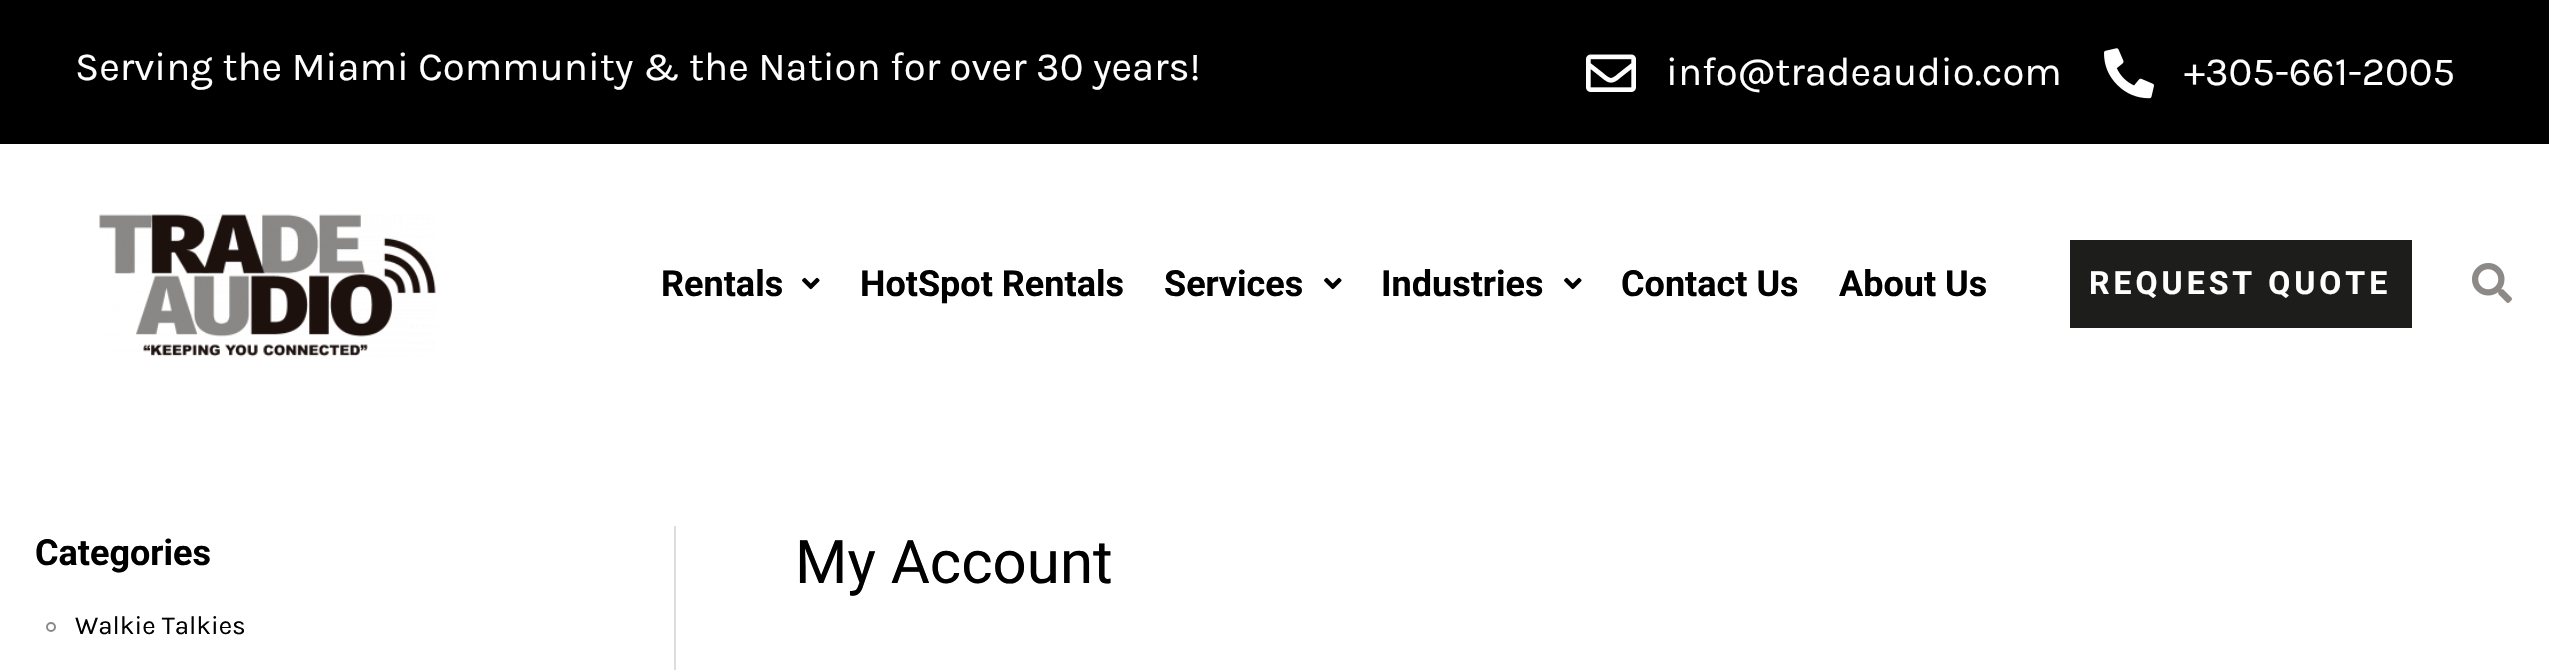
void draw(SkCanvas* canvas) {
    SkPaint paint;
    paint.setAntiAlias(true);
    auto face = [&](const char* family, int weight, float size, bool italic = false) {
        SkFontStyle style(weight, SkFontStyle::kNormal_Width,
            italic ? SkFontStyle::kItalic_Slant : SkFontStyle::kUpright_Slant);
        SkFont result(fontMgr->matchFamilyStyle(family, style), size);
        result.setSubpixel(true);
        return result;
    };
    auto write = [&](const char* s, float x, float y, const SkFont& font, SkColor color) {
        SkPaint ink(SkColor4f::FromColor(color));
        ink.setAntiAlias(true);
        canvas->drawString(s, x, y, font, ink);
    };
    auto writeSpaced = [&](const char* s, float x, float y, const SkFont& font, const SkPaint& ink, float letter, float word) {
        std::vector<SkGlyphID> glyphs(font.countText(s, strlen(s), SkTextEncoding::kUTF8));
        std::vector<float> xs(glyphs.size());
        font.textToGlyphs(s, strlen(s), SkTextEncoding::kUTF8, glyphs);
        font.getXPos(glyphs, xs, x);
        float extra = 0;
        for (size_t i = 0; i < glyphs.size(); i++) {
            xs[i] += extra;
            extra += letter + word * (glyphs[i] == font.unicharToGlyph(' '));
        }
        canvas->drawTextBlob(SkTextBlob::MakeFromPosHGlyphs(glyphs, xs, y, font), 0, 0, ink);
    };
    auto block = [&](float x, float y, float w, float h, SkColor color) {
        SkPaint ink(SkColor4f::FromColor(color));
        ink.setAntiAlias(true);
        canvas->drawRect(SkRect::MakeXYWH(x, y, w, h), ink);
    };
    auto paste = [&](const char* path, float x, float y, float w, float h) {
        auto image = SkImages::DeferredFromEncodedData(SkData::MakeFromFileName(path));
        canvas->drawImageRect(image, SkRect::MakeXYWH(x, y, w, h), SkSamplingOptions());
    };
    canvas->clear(SK_ColorWHITE);
    block(0, 0, 2549, 144, SK_ColorBLACK);
    auto kFont1 = face("Karla", 400, 40);
    write("Serving the Miami Community & the Nation for over 30 years!", 75, 80, kFont1, SK_ColorWHITE);
    paste("pic1.png", 1586, 54, 50, 38);
    write("info@tradeaudio.com", 1666, 85, kFont1, SK_ColorWHITE);
    paste("pic2.png", 2104, 48, 50, 51);
    write("+305-661-2005", 2184, 85, kFont1, SK_ColorWHITE);
    paste("pic3.png", 99, 214, 337, 143);
    auto kFont2 = face("Roboto", 700, 36);
    write("Rentals", 661, 296, kFont2, SK_ColorBLACK);
    paste("pic4.png", 802, 277, 18, 13);
    write("HotSpot Rentals", 860, 296, kFont2, SK_ColorBLACK);
    write("Services", 1164, 296, kFont2, SK_ColorBLACK);
    paste("pic4.png", 1324, 277, 18, 13);
    write("Industries", 1381, 296, kFont2, SK_ColorBLACK);
    paste("pic4.png", 1564, 277, 18, 13);
    write("Contact Us", 1621, 296, kFont2, SK_ColorBLACK);
    write("About Us", 1839, 296, kFont2, SK_ColorBLACK);
    block(2070, 240, 342, 88, SkColorSetRGB(29, 29, 27));
    auto kFont3 = face("Roboto", 700, 32);
    paint.setColor(SK_ColorWHITE);
    writeSpaced("REQUEST QUOTE", 2089, 294, kFont3, paint, 4, 0);
    paste("pic5.png", 2472, 263, 40, 40);
    block(674, 526, 2, 144, SkColorSetRGB(221, 221, 221));
    write("Categories", 35, 565, kFont2, SK_ColorBLACK);
    paint.setStyle(SkPaint::kStroke_Style);
    paint.setStrokeWidth(2);
    paint.setColor(SkColorSetRGB(140, 137, 135));
    canvas->drawCircle(51, 627, 4, paint);
    auto kFont4 = face("Karla", 400, 26);
    write("Walkie Talkies", 75, 634, kFont4, SK_ColorBLACK);
    auto kFont5 = face("Roboto", 400, 60);
    write("My Account", 795, 583, kFont5, SK_ColorBLACK);
}
